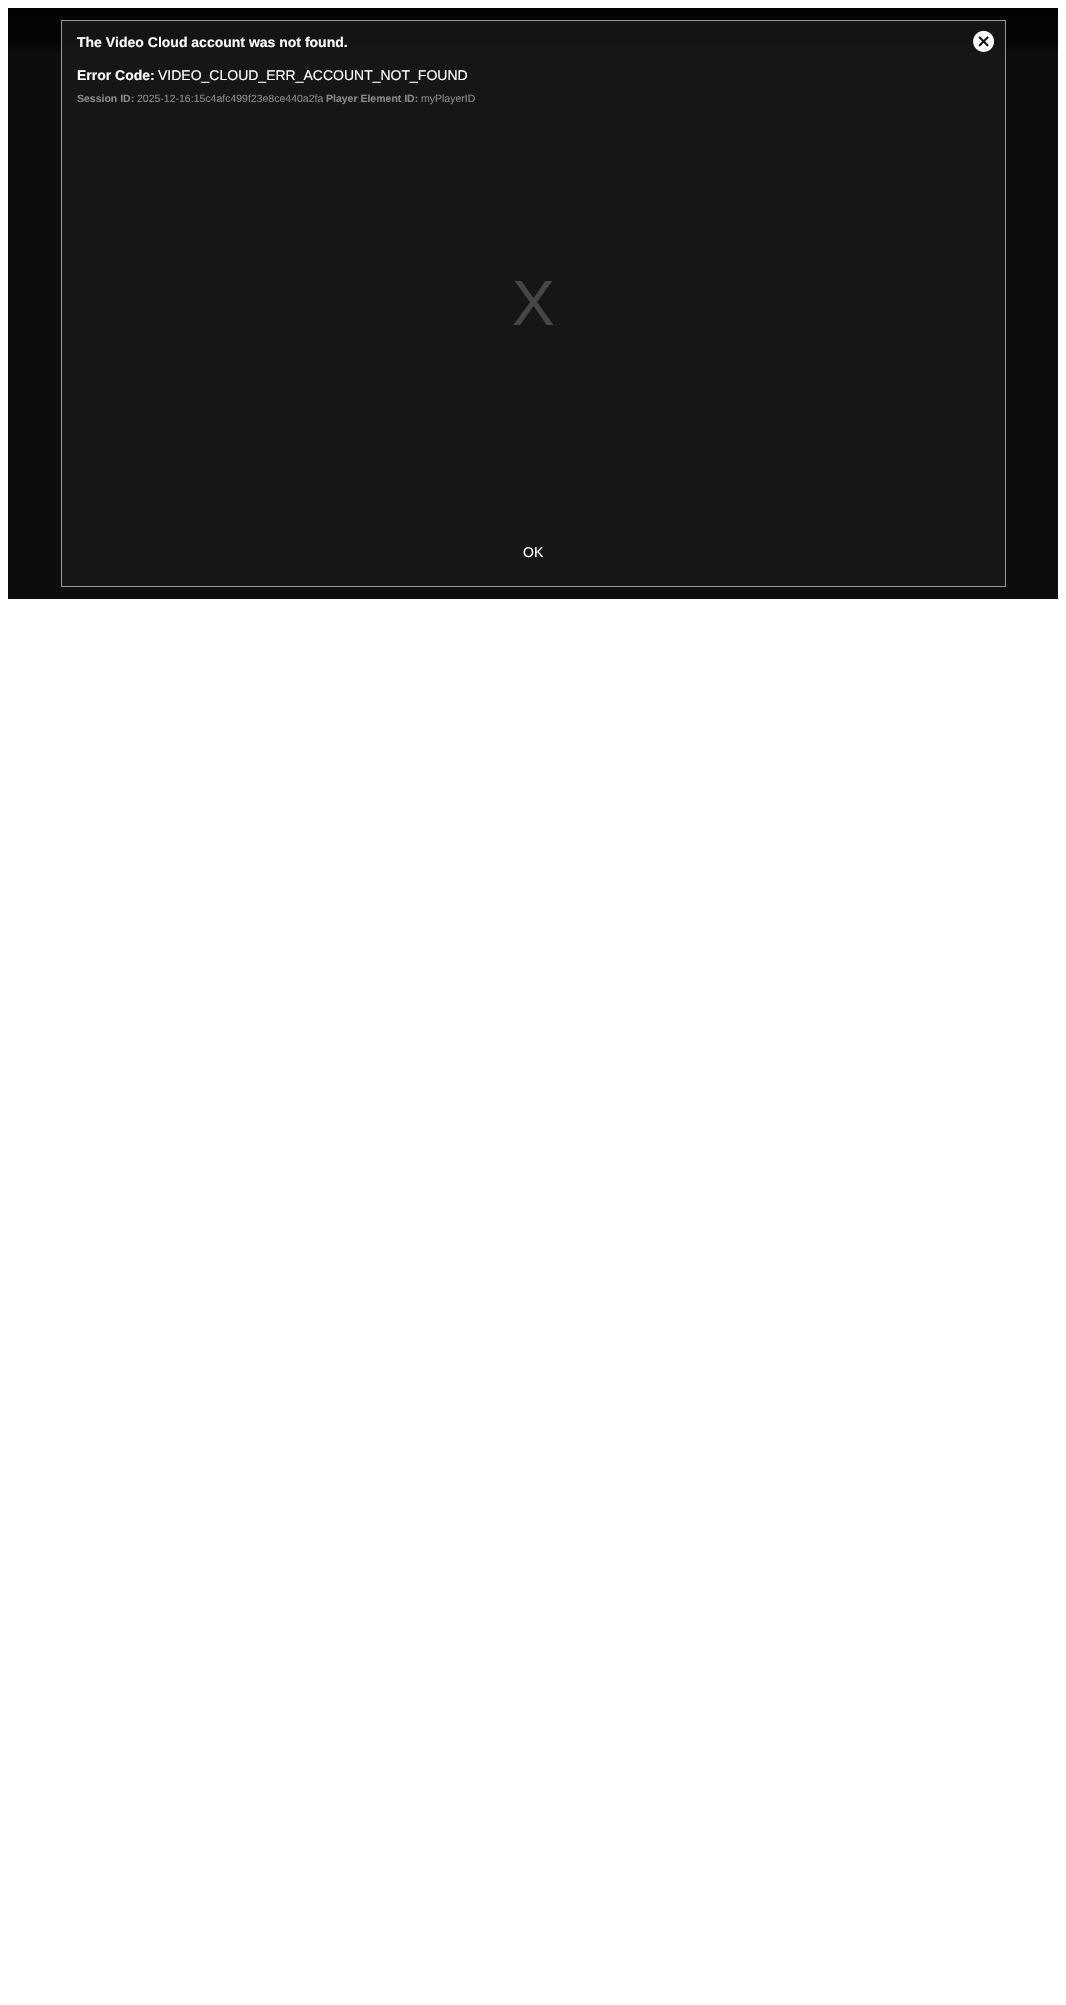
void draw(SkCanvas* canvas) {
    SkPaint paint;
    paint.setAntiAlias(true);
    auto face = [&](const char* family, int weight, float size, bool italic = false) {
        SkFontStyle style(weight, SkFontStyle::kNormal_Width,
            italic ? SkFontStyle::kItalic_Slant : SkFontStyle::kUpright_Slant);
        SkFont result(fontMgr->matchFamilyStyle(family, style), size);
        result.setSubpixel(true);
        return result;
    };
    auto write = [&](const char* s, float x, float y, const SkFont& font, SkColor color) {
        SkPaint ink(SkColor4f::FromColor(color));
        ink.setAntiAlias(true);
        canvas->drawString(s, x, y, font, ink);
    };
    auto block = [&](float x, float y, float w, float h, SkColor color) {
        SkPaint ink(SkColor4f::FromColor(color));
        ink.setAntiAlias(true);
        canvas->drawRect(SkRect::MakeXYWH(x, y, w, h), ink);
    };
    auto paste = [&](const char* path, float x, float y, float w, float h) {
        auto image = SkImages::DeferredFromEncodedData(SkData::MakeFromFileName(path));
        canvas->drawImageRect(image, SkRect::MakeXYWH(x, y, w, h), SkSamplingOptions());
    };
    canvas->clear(SK_ColorWHITE);
    block(8, 55, 1050, 544, SkColorSetRGB(11, 14, 12));
    block(62, 55, 943, 531, SkColorSetRGB(21, 22, 22));
    {
        const SkColor colors[] = {SkColorSetRGB(2, 3, 3), SkColorSetRGB(3, 4, 4), SkColorSetRGB(3, 4, 4), SkColorSetRGB(11, 14, 12)};
        const float stops[] = {0, 0.3f, 0.7f, 1};
        const SkPoint ends[] = {{533, 8}, {533, 55}};
        paint.setShader(SkGradientShader::MakeLinear(ends, colors, stops, 4, SkTileMode::kClamp));
        paint.setAlpha(255);
    }
    canvas->drawRect(SkRect::MakeXYWH(8, 8, 1050, 47), paint);
    {
        const SkColor colors[] = {SkColorSetRGB(20, 20, 20), SkColorSetRGB(20, 20, 20), SkColorSetRGB(20, 20, 20), SkColorSetRGB(21, 22, 22)};
        const float stops[] = {0, 0.3f, 0.7f, 1};
        const SkPoint ends[] = {{533, 8}, {533, 55}};
        paint.setShader(SkGradientShader::MakeLinear(ends, colors, stops, 4, SkTileMode::kClamp));
        paint.setAlpha(255);
    }
    canvas->drawRect(SkRect::MakeXYWH(62, 21, 943, 34), paint);
    paint.setStyle(SkPaint::kStroke_Style);
    paint.setStrokeWidth(1);
    paint.setShader(nullptr);
    paint.setColor(SkColorSetRGB(153, 153, 153));
    canvas->drawRect(SkRect::MakeXYWH(61.5f, 20.5f, 944, 566), paint);
    auto kFont1 = face("Liberation Sans", 700, 14);
    write("The Video Cloud account was not found.", 77, 47, kFont1, SK_ColorWHITE);
    write("Error Code:", 77, 80, kFont1, SK_ColorWHITE);
    auto kFont2 = face("Liberation Sans", 400, 14);
    write("VIDEO_CLOUD_ERR_ACCOUNT_NOT_FOUND", 158, 80, kFont2, SK_ColorWHITE);
    auto kFont3 = face("Liberation Sans", 700, 10.5f);
    write("Session ID:", 77, 102, kFont3, SkColorSetRGB(138, 138, 138));
    auto kFont4 = face("Liberation Sans", 400, 10.5f);
    write("2025-12-16:15c4afc499f23e8ce440a2fa", 137, 102, kFont4, SkColorSetRGB(138, 138, 138));
    write("Player Element ID:", 326, 102, kFont3, SkColorSetRGB(138, 138, 138));
    write("myPlayerID", 421, 102, kFont4, SkColorSetRGB(138, 138, 138));
    paste("pic1.png", 973, 30, 22, 22);
    write("OK", 523, 557, kFont2, SK_ColorWHITE);
    auto kFont5 = face("Liberation Sans", 400, 64);
    write("X", 512, 325, kFont5, SkColorSetRGB(70, 70, 70));
}
